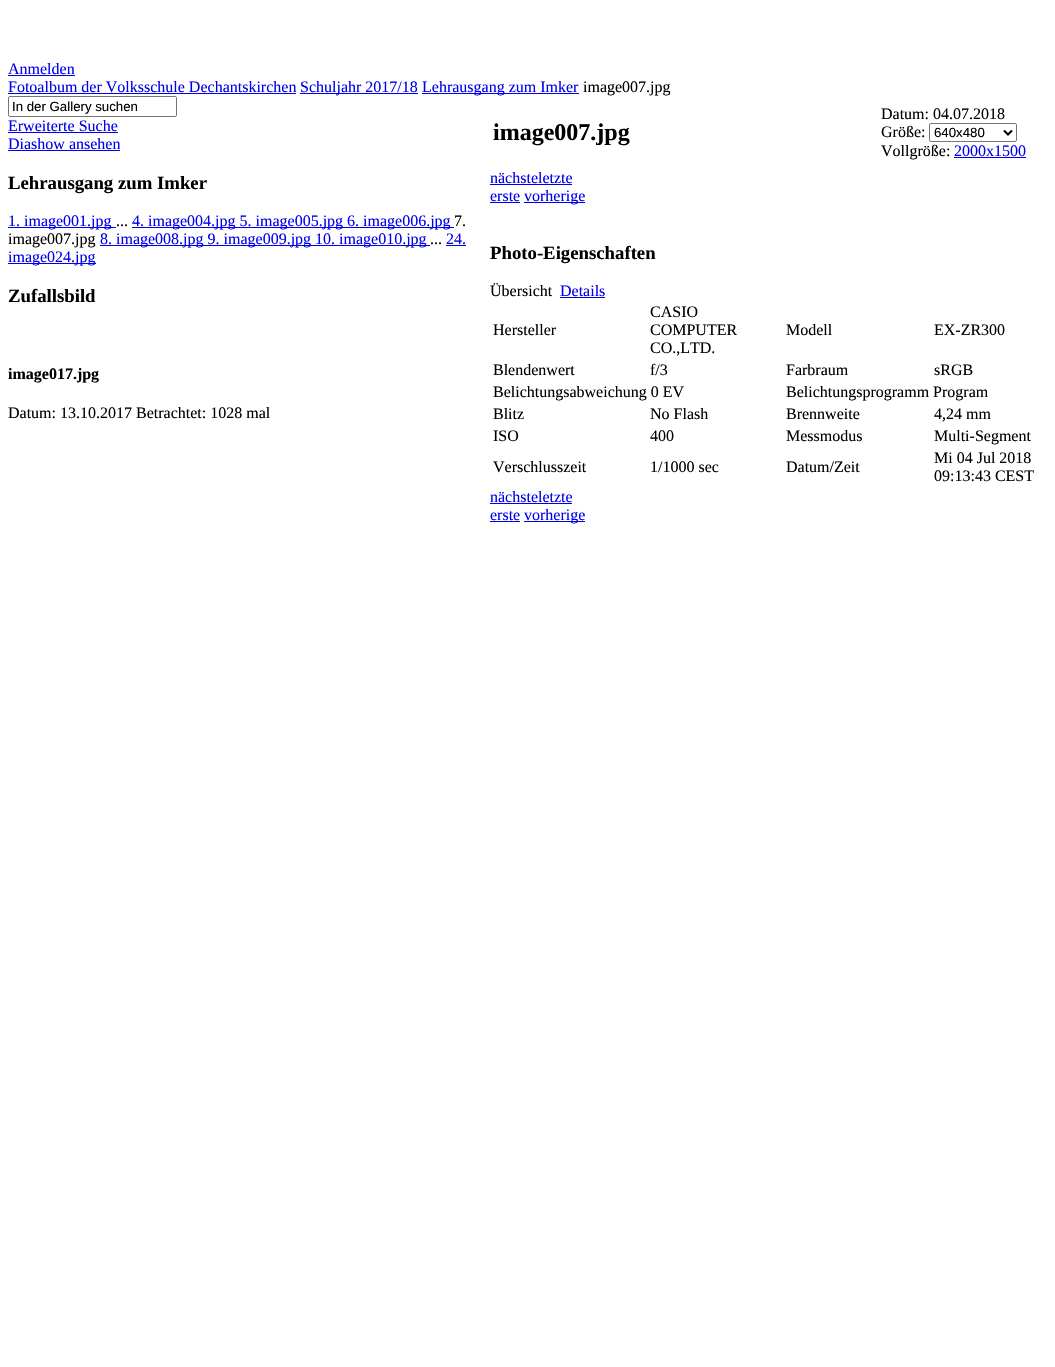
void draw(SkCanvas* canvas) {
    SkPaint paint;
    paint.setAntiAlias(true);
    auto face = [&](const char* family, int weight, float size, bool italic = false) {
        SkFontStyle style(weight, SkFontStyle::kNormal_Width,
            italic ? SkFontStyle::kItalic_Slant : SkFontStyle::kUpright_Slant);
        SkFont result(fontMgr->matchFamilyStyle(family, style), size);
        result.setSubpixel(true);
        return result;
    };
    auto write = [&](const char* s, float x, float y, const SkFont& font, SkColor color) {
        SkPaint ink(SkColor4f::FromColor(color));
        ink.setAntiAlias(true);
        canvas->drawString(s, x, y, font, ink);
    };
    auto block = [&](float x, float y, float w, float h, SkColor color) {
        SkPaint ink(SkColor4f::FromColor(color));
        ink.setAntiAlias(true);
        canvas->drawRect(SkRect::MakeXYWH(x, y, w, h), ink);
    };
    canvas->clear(SK_ColorWHITE);
    auto kFont1 = face("Liberation Serif", 400, 16);
    write("Anmelden", 8, 74, kFont1, SkColorSetRGB(0, 0, 238));
    block(8, 75, 67, 1, SkColorSetRGB(0, 0, 238));
    write("Fotoalbum der Volksschule Dechantskirchen", 8, 92, kFont1, SkColorSetRGB(0, 0, 238));
    block(8, 93, 288, 1, SkColorSetRGB(0, 0, 238));
    block(300, 93, 118, 1, SkColorSetRGB(0, 0, 238));
    write("Schuljahr 2017/18", 300, 92, kFont1, SkColorSetRGB(0, 0, 238));
    block(422, 93, 157, 1, SkColorSetRGB(0, 0, 238));
    write("Lehrausgang zum Imker", 422, 92, kFont1, SkColorSetRGB(0, 0, 238));
    write("image007.jpg", 583, 92, kFont1, SK_ColorBLACK);
    paint.setStyle(SkPaint::kStroke_Style);
    paint.setStrokeWidth(1);
    paint.setColor(SkColorSetRGB(118, 118, 118));
    canvas->drawRoundRect(SkRect::MakeXYWH(8.5f, 96.5f, 168, 20), 1.5f, 1.5f, paint);
    auto kFont2 = face("Liberation Sans", 400, 13.25f);
    write("In der Gallery suchen", 12, 111, kFont2, SK_ColorBLACK);
    write("Erweiterte Suche", 8, 131, kFont1, SkColorSetRGB(0, 0, 238));
    block(8, 132, 110, 1, SkColorSetRGB(0, 0, 238));
    write("Diashow ansehen", 8, 149, kFont1, SkColorSetRGB(0, 0, 238));
    block(8, 150, 112, 1, SkColorSetRGB(0, 0, 238));
    auto kFont3 = face("Liberation Serif", 700, 18.75f);
    write("Lehrausgang zum Imker", 8, 189, kFont3, SK_ColorBLACK);
    block(8, 227, 108, 1, SkColorSetRGB(0, 0, 238));
    write("1. image001.jpg", 8, 226, kFont1, SkColorSetRGB(0, 0, 238));
    write("...", 116, 226, kFont1, SK_ColorBLACK);
    block(132, 227, 322, 1, SkColorSetRGB(0, 0, 238));
    write("4. image004.jpg 5. image005.jpg 6. image006.jpg", 132, 226, kFont1, SkColorSetRGB(0, 0, 238));
    write("7.", 454, 226, kFont1, SK_ColorBLACK);
    write("image007.jpg", 8, 244, kFont1, SK_ColorBLACK);
    block(100, 245, 330, 1, SkColorSetRGB(0, 0, 238));
    write("8. image008.jpg 9. image009.jpg 10. image010.jpg", 100, 244, kFont1, SkColorSetRGB(0, 0, 238));
    write("...", 430, 244, kFont1, SK_ColorBLACK);
    write("24.", 446, 244, kFont1, SkColorSetRGB(0, 0, 238));
    block(446, 245, 20, 1, SkColorSetRGB(0, 0, 238));
    block(8, 263, 88, 1, SkColorSetRGB(0, 0, 238));
    write("image024.jpg", 8, 262, kFont1, SkColorSetRGB(0, 0, 238));
    write("Zufallsbild", 8, 302, kFont3, SK_ColorBLACK);
    auto kFont4 = face("Liberation Serif", 700, 16);
    write("image017.jpg", 8, 379, kFont4, SK_ColorBLACK);
    write("Datum: 13.10.2017 Betrachtet: 1028 mal", 8, 418, kFont1, SK_ColorBLACK);
    auto kFont5 = face("Liberation Serif", 700, 24);
    write("image007.jpg", 493, 140, kFont5, SK_ColorBLACK);
    write("Datum: 04.07.2018", 881, 119, kFont1, SK_ColorBLACK);
    write("Größe:", 881, 137, kFont1, SK_ColorBLACK);
    canvas->drawRoundRect(SkRect::MakeXYWH(929.5f, 123.5f, 87, 18), 1.5f, 1.5f, paint);
    paint.setStrokeWidth(2);
    paint.setColor(SK_ColorBLACK);
    canvas->drawPath(SkPathBuilder().moveTo(1004, 130.5f).lineTo(1008, 134.5f).lineTo(1012, 130.5f).detach(), paint);
    write("640x480", 934, 137, kFont2, SK_ColorBLACK);
    write("Vollgröße:", 881, 156, kFont1, SK_ColorBLACK);
    write("2000x1500", 954, 156, kFont1, SkColorSetRGB(0, 0, 238));
    block(954, 157, 72, 1, SkColorSetRGB(0, 0, 238));
    write("nächsteletzte", 490, 183, kFont1, SkColorSetRGB(0, 0, 238));
    block(490, 184, 82, 1, SkColorSetRGB(0, 0, 238));
    write("erste", 490, 201, kFont1, SkColorSetRGB(0, 0, 238));
    block(490, 202, 30, 1, SkColorSetRGB(0, 0, 238));
    block(524, 202, 61, 1, SkColorSetRGB(0, 0, 238));
    write("vorherige", 524, 201, kFont1, SkColorSetRGB(0, 0, 238));
    write("Photo-Eigenschaften", 490, 259, kFont3, SK_ColorBLACK);
    write("Übersicht", 490, 296, kFont1, SK_ColorBLACK);
    write("Details", 560, 296, kFont1, SkColorSetRGB(0, 0, 238));
    block(560, 297, 45, 1, SkColorSetRGB(0, 0, 238));
    write("Hersteller", 493, 335, kFont1, SK_ColorBLACK);
    write("CASIO", 650, 317, kFont1, SK_ColorBLACK);
    write("COMPUTER", 650, 335, kFont1, SK_ColorBLACK);
    write("CO.,LTD.", 650, 353, kFont1, SK_ColorBLACK);
    write("Modell", 786, 335, kFont1, SK_ColorBLACK);
    write("EX-ZR300", 934, 335, kFont1, SK_ColorBLACK);
    write("Blendenwert", 493, 375, kFont1, SK_ColorBLACK);
    write("f/3", 650, 375, kFont1, SK_ColorBLACK);
    write("Farbraum", 786, 375, kFont1, SK_ColorBLACK);
    write("sRGB", 934, 375, kFont1, SK_ColorBLACK);
    write("Belichtungsabweichung 0 EV", 493, 397, kFont1, SK_ColorBLACK);
    write("Belichtungsprogramm Program", 786, 397, kFont1, SK_ColorBLACK);
    write("Blitz", 493, 419, kFont1, SK_ColorBLACK);
    write("No Flash", 650, 419, kFont1, SK_ColorBLACK);
    write("Brennweite", 786, 419, kFont1, SK_ColorBLACK);
    write("4,24 mm", 934, 419, kFont1, SK_ColorBLACK);
    write("ISO", 493, 441, kFont1, SK_ColorBLACK);
    write("400", 650, 441, kFont1, SK_ColorBLACK);
    write("Messmodus", 786, 441, kFont1, SK_ColorBLACK);
    write("Multi-Segment", 934, 441, kFont1, SK_ColorBLACK);
    write("Verschlusszeit", 493, 472, kFont1, SK_ColorBLACK);
    write("1/1000 sec", 650, 472, kFont1, SK_ColorBLACK);
    write("Datum/Zeit", 786, 472, kFont1, SK_ColorBLACK);
    write("Mi 04 Jul 2018", 934, 463, kFont1, SK_ColorBLACK);
    write("09:13:43 CEST", 934, 481, kFont1, SK_ColorBLACK);
    write("nächsteletzte", 490, 502, kFont1, SkColorSetRGB(0, 0, 238));
    block(490, 503, 82, 1, SkColorSetRGB(0, 0, 238));
    write("erste", 490, 520, kFont1, SkColorSetRGB(0, 0, 238));
    block(490, 521, 30, 1, SkColorSetRGB(0, 0, 238));
    block(524, 521, 61, 1, SkColorSetRGB(0, 0, 238));
    write("vorherige", 524, 520, kFont1, SkColorSetRGB(0, 0, 238));
}
